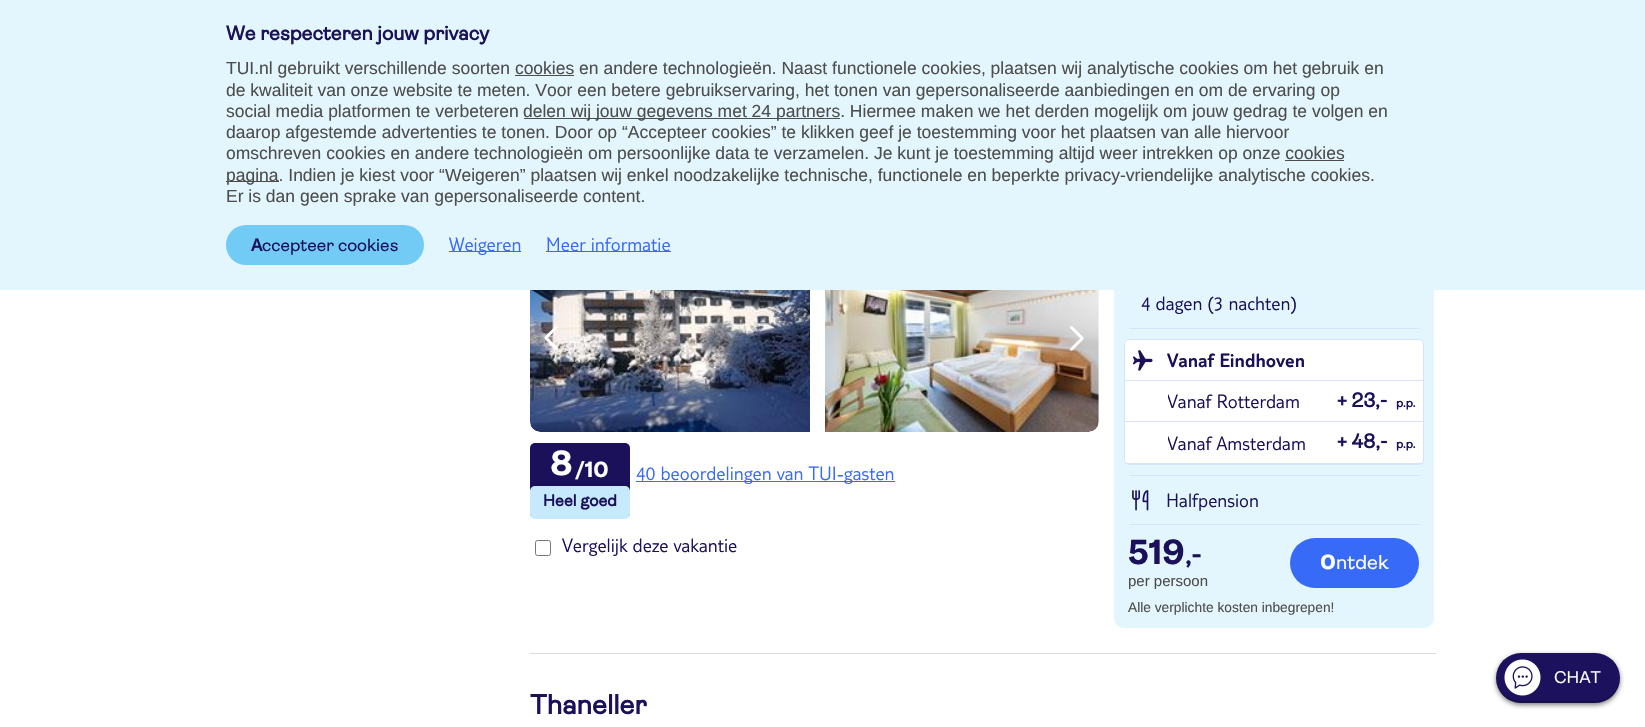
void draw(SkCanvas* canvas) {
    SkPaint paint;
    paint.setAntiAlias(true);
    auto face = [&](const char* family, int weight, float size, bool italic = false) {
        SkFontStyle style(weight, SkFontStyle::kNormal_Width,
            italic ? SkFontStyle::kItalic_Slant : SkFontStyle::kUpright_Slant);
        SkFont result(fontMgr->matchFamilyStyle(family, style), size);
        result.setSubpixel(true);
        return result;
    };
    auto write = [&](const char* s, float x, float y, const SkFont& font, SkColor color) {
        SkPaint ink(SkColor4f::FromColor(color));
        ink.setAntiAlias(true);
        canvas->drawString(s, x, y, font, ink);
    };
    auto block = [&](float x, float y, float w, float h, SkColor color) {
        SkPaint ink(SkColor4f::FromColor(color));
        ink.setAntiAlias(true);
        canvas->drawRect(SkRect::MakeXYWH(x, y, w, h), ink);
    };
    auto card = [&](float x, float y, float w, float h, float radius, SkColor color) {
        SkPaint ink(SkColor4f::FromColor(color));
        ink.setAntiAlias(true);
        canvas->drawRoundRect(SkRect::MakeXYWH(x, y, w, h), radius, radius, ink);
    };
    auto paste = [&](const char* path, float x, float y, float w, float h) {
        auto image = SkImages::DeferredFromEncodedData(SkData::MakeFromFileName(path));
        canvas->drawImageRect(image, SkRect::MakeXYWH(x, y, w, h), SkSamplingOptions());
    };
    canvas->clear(SK_ColorWHITE);
    card(1114, 236, 320, 392, 10, SkColorSetRGB(227, 245, 253));
    block(0, 0, 1645, 290, SkColorSetRGB(227, 245, 253));
    auto kFont1 = face("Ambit", 700, 20);
    write("We respecteren jouw privacy", 226, 40, kFont1, SkColorSetRGB(26, 17, 90));
    auto kFont2 = face("Liberation Sans", 400, 17.5f);
    write("TUI.nl gebruikt verschillende soorten cookies en andere technologieën. Naast functionele cookies, plaatsen wij analytische cookies om het gebruik en", 226, 74, kFont2, SkColorSetRGB(77, 77, 77));
    block(515, 75, 59, 1, SkColorSetRGB(77, 77, 77));
    write("de kwaliteit van onze website te meten. Voor een betere gebruikservaring, het tonen van gepersonaliseerde aanbiedingen en om de ervaring op", 226, 96, kFont2, SkColorSetRGB(77, 77, 77));
    write("social media platformen te verbeteren", 226, 117, kFont2, SkColorSetRGB(77, 77, 77));
    block(524, 118, 316, 1, SkColorSetRGB(77, 77, 77));
    write("delen wij jouw gegevens met 24 partners. Hiermee maken we het derden mogelijk om jouw gedrag te volgen en", 523, 117, kFont2, SkColorSetRGB(77, 77, 77));
    write("daarop afgestemde advertenties te tonen. Door op “Accepteer cookies” te klikken geef je toestemming voor het plaatsen van alle hiervoor", 226, 138, kFont2, SkColorSetRGB(77, 77, 77));
    write("omschreven cookies en andere technologieën om persoonlijke data te verzamelen. Je kunt je toestemming altijd weer intrekken op onze cookies", 226, 159, kFont2, SkColorSetRGB(77, 77, 77));
    block(226, 181, 53, 1, SkColorSetRGB(77, 77, 77));
    write("pagina. Indien je kiest voor “Weigeren” plaatsen wij enkel noodzakelijke technische, functionele en beperkte privacy-vriendelijke analytische cookies.", 226, 181, kFont2, SkColorSetRGB(77, 77, 77));
    block(1285, 160, 59, 1, SkColorSetRGB(77, 77, 77));
    write("Er is dan geen sprake van gepersonaliseerde content.", 226, 202, kFont2, SkColorSetRGB(77, 77, 77));
    card(226, 225, 198, 40, 20, SkColorSetRGB(113, 203, 244));
    auto kFont3 = face("Noto Sans", 600, 17.5f);
    write("A", 251, 251, kFont3, SkColorSetRGB(26, 17, 90));
    auto kFont4 = face("Ambit", 400, 17.5f);
    write("ccepteer cookies", 262, 251, kFont4, SkColorSetRGB(26, 17, 90));
    block(449, 251, 72, 1, SkColorSetRGB(55, 106, 246));
    auto kFont5 = face("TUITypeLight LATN", 300, 20);
    write("Weigeren", 449, 251, kFont5, SkColorSetRGB(55, 106, 246));
    block(546, 251, 125, 1, SkColorSetRGB(55, 106, 246));
    write("Meer informatie", 546, 251, kFont5, SkColorSetRGB(55, 106, 246));
    block(530, 653, 906, 1, SkColorSetRGB(219, 219, 219));
    paste("pic1.png", 530, 290, 280, 142);
    paste("pic2.png", 825, 290, 274, 142);
    paste("pic3.png", 544, 325, 15, 26);
    paste("pic4.png", 1070, 326, 14, 25);
    card(530, 443, 100, 75, 5, SkColorSetRGB(26, 17, 90));
    auto kFont6 = face("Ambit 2", 700, 35);
    write("8", 550, 475, kFont6, SK_ColorWHITE);
    auto kFont7 = face("Ambit 2", 700, 22);
    write("/10", 575, 477, kFont7, SK_ColorWHITE);
    card(530, 486, 100, 33, 5, SkColorSetRGB(198, 234, 251));
    auto kFont8 = face("Ambit", 700, 16.25f);
    write("Heel goed", 543, 506, kFont8, SkColorSetRGB(26, 17, 90));
    block(636, 481, 259, 1, SkColorSetRGB(55, 106, 246));
    write("40 beoordelingen van TUI-gasten", 636, 480, kFont5, SkColorSetRGB(55, 106, 246));
    paint.setStyle(SkPaint::kStroke_Style);
    paint.setStrokeWidth(1);
    paint.setColor(SkColorSetRGB(118, 118, 118));
    canvas->drawRoundRect(SkRect::MakeXYWH(535.5f, 540.5f, 15, 15), 2, 2, paint);
    write("Vergelijk deze vakantie", 562, 552, kFont5, SkColorSetRGB(26, 17, 90));
    block(1129, 328, 290, 1, SkColorSetRGB(216, 226, 253));
    write("4 dagen (3 nachten)", 1141, 310, kFont5, SkColorSetRGB(26, 17, 90));
    block(1129, 475, 290, 1, SkColorSetRGB(216, 226, 253));
    paint.setStyle(SkPaint::kFill_Style);
    paint.setColor(SK_ColorWHITE);
    canvas->drawRoundRect(SkRect::MakeXYWH(1124.5f, 339.5f, 299, 125), 4.5f, 4.5f, paint);
    paint.setStyle(SkPaint::kStroke_Style);
    paint.setColor(SkColorSetRGB(216, 226, 253));
    canvas->drawRoundRect(SkRect::MakeXYWH(1124.5f, 339.5f, 299, 125), 4.5f, 4.5f, paint);
    block(1125, 380, 298, 1, SkColorSetRGB(216, 226, 253));
    paste("pic5.png", 1133, 350, 20, 21);
    auto kFont9 = face("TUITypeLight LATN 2", 300, 20);
    write("Vanaf Eindhoven", 1167, 367, kFont9, SkColorSetRGB(26, 17, 90));
    block(1125, 421, 298, 1, SkColorSetRGB(216, 226, 253));
    canvas->save();
    canvas->clipRect(SkRect::MakeXYWH(1168, 390, 156, 23));
    write("Vanaf Rotterdam", 1167, 408, kFont5, SkColorSetRGB(26, 17, 90));
    canvas->restore();
    write("+ 23,-", 1337, 407, kFont1, SkColorSetRGB(26, 17, 90));
    auto kFont10 = face("Ambit", 700, 12);
    write("p.p.", 1396, 407, kFont10, SkColorSetRGB(26, 17, 90));
    block(1125, 463, 298, 1, SkColorSetRGB(216, 226, 253));
    canvas->save();
    canvas->clipRect(SkRect::MakeXYWH(1168, 431, 156, 23));
    write("Vanaf Amsterdam", 1167, 450, kFont5, SkColorSetRGB(26, 17, 90));
    canvas->restore();
    write("+ 48,-", 1337, 448, kFont1, SkColorSetRGB(26, 17, 90));
    write("p.p.", 1396, 448, kFont10, SkColorSetRGB(26, 17, 90));
    block(1129, 524, 290, 1, SkColorSetRGB(216, 226, 253));
    paste("pic6.png", 1132, 490, 17, 21);
    write("Halfpension", 1166, 507, kFont5, SkColorSetRGB(26, 17, 90));
    write("519", 1128, 564, kFont6, SkColorSetRGB(26, 17, 90));
    auto kFont11 = face("Ambit", 700, 27.5f);
    write(",-", 1185, 564, kFont11, SkColorSetRGB(26, 17, 90));
    auto kFont12 = face("Liberation Sans", 400, 15);
    write("per persoon", 1128, 586, kFont12, SkColorSetRGB(77, 77, 77));
    card(1290, 538, 129, 50, 25, SkColorSetRGB(55, 106, 246));
    auto kFont13 = face("Noto Sans", 800, 20);
    write("O", 1320, 569, kFont13, SK_ColorWHITE);
    auto kFont14 = face("Ambit", 400, 20);
    write("ntdek", 1336, 569, kFont14, SK_ColorWHITE);
    auto kFont15 = face("Liberation Sans", 400, 13.75f);
    write("Alle verplichte kosten inbegrepen!", 1128, 612, kFont15, SkColorSetRGB(77, 77, 77));
    write("Thaneller", 530, 714, kFont11, SkColorSetRGB(26, 17, 90));
    paint.setStyle(SkPaint::kFill_Style);
    paint.setColor(SkColorSetARGB(128, 0, 0, 0));
    paint.setMaskFilter(SkMaskFilter::MakeBlur(kNormal_SkBlurStyle, 2.5f));
    canvas->drawRoundRect(SkRect::MakeXYWH(1496, 655, 124, 50), 25, 25, paint);
    paint.setMaskFilter(nullptr);
    card(1496, 653, 124, 50, 25, SkColorSetRGB(27, 17, 92));
    paint.setColor(SkColorSetARGB(51, 0, 0, 0));
    canvas->drawPath(SkPathBuilder().moveTo(1496, 677).lineTo(1496, 678).cubicTo(1496, 692, 1507, 703, 1521, 703).lineTo(1595, 703).cubicTo(1609, 703, 1620, 692, 1620, 678).lineTo(1620, 677).cubicTo(1619, 691, 1609, 701, 1595, 701).lineTo(1521, 701).cubicTo(1507, 701, 1497, 691, 1496, 677).close().detach(), paint);
    paste("pic7.png", 1504, 659, 37, 37);
    auto kFont16 = face("Ambit", 400, 17);
    write("CHAT", 1554, 683, kFont16, SK_ColorWHITE);
}
